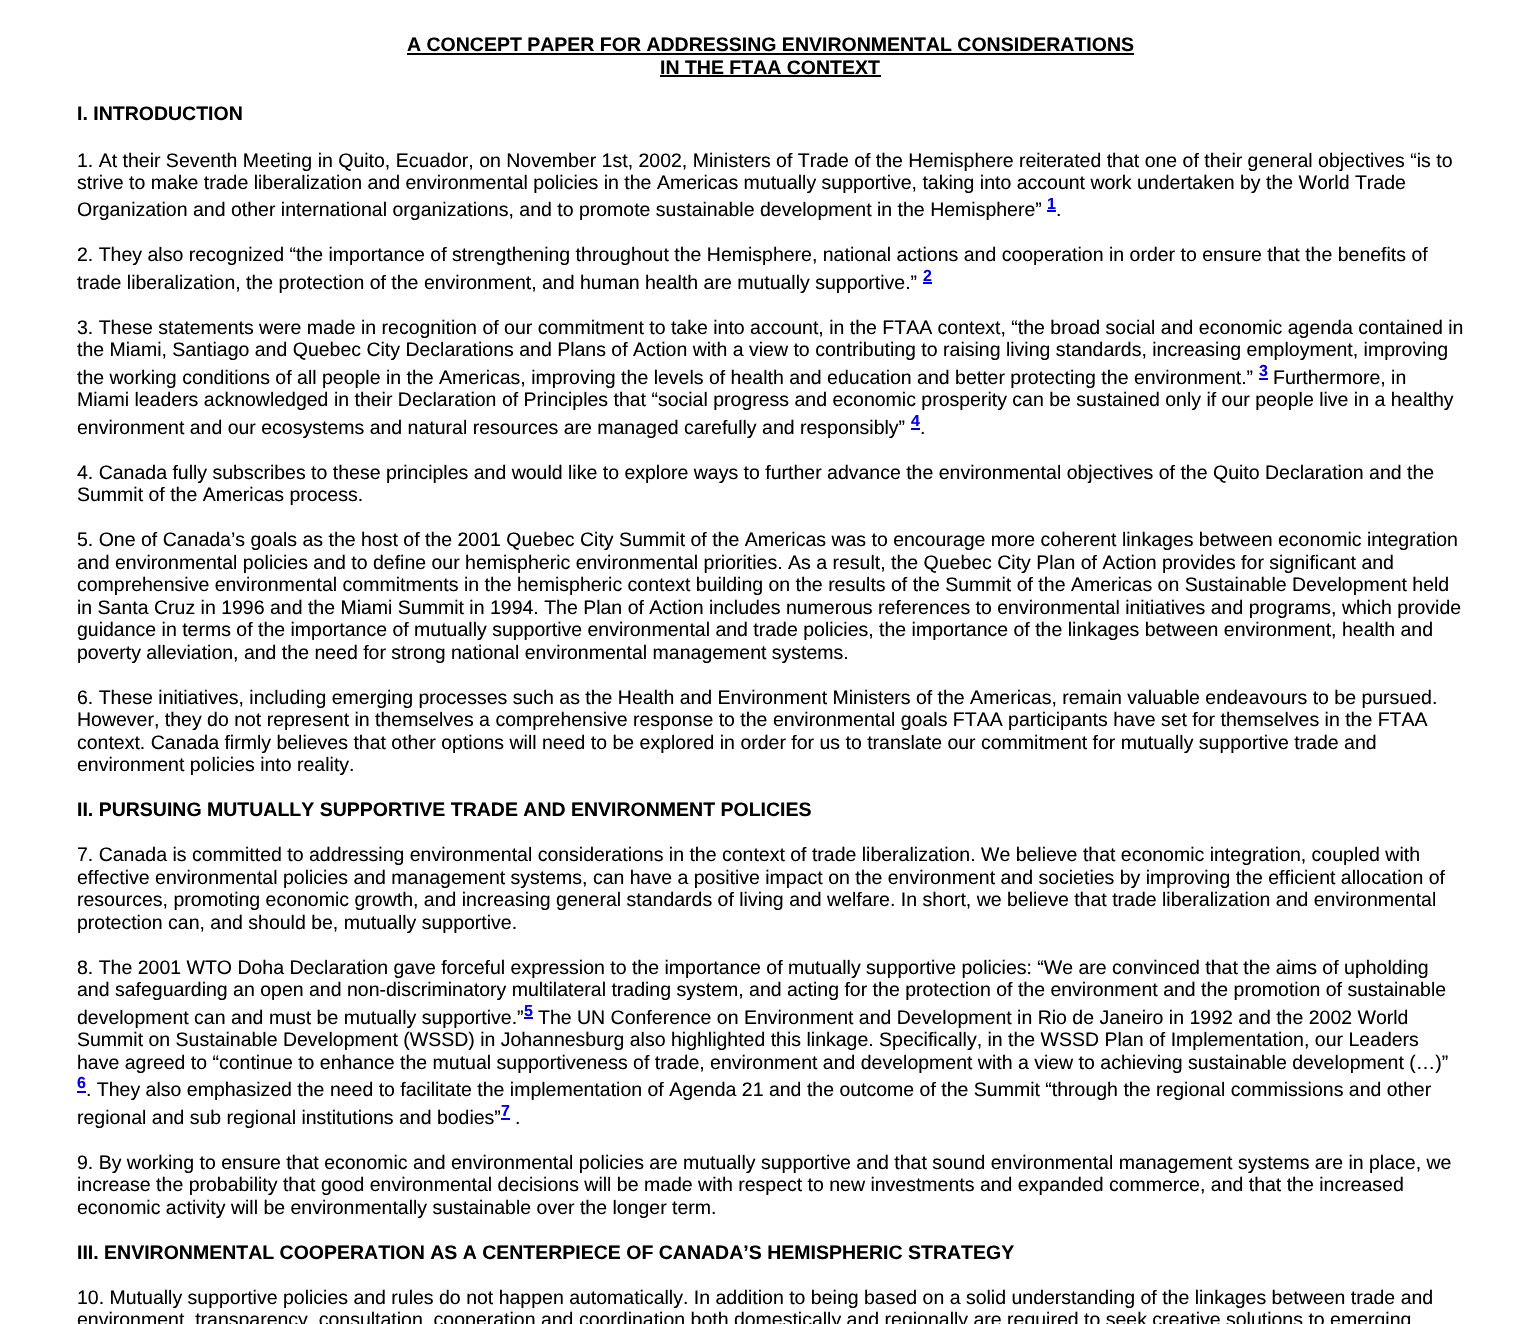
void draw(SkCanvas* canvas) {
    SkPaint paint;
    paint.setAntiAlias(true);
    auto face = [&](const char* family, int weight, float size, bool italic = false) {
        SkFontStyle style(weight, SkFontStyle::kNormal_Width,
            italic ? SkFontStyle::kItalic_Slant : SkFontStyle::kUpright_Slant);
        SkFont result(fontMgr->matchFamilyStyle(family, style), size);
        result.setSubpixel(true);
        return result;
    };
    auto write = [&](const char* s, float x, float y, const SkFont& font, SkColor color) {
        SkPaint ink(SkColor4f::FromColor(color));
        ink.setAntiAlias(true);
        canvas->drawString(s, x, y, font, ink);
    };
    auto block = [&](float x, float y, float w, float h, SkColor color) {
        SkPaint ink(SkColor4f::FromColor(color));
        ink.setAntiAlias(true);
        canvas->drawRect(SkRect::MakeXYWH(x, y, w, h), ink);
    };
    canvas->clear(SK_ColorWHITE);
    auto kFont1 = face("Liberation Sans", 700, 19.5f);
    write("A CONCEPT PAPER FOR ADDRESSING ENVIRONMENTAL CONSIDERATIONS", 407, 51, kFont1, SK_ColorBLACK);
    block(407, 53, 727, 2, SK_ColorBLACK);
    write("IN THE FTAA CONTEXT", 660, 74, kFont1, SK_ColorBLACK);
    block(660, 75, 221, 2, SK_ColorBLACK);
    write("I. INTRODUCTION", 77, 120, kFont1, SK_ColorBLACK);
    auto kFont2 = face("Liberation Sans", 400, 19.5f);
    write("1. At their Seventh Meeting in Quito, Ecuador, on November 1st, 2002, Ministers of Trade of the Hemisphere reiterated that one of their general objectives “is to", 77, 167, kFont2, SK_ColorBLACK);
    write("strive to make trade liberalization and environmental policies in the Americas mutually supportive, taking into account work undertaken by the World Trade", 77, 189, kFont2, SK_ColorBLACK);
    write("Organization and other international organizations, and to promote sustainable development in the Hemisphere”", 77, 216, kFont2, SK_ColorBLACK);
    block(1047, 210, 9, 2, SkColorSetRGB(0, 0, 238));
    auto kFont3 = face("Liberation Sans", 700, 16);
    write("1", 1047, 209, kFont3, SkColorSetRGB(0, 0, 238));
    write(".", 1056, 216, kFont2, SK_ColorBLACK);
    write("2. They also recognized “the importance of strengthening throughout the Hemisphere, national actions and cooperation in order to ensure that the benefits of", 77, 261, kFont2, SK_ColorBLACK);
    write("trade liberalization, the protection of the environment, and human health are mutually supportive.”", 77, 289, kFont2, SK_ColorBLACK);
    block(923, 282, 9, 2, SkColorSetRGB(0, 0, 238));
    write("2", 923, 281, kFont3, SkColorSetRGB(0, 0, 238));
    write("3. These statements were made in recognition of our commitment to take into account, in the FTAA context, “the broad social and economic agenda contained in", 77, 334, kFont2, SK_ColorBLACK);
    write("the Miami, Santiago and Quebec City Declarations and Plans of Action with a view to contributing to raising living standards, increasing employment, improving", 77, 356, kFont2, SK_ColorBLACK);
    write("the working conditions of all people in the Americas, improving the levels of health and education and better protecting the environment.”", 77, 384, kFont2, SK_ColorBLACK);
    block(1259, 378, 9, 2, SkColorSetRGB(0, 0, 238));
    write("3", 1259, 376, kFont3, SkColorSetRGB(0, 0, 238));
    write("Furthermore, in", 1273, 384, kFont2, SK_ColorBLACK);
    write("Miami leaders acknowledged in their Declaration of Principles that “social progress and economic prosperity can be sustained only if our people live in a healthy", 77, 406, kFont2, SK_ColorBLACK);
    write("environment and our ecosystems and natural resources are managed carefully and responsibly”", 77, 434, kFont2, SK_ColorBLACK);
    block(911, 428, 9, 2, SkColorSetRGB(0, 0, 238));
    write("4", 911, 426, kFont3, SkColorSetRGB(0, 0, 238));
    write(".", 920, 434, kFont2, SK_ColorBLACK);
    write("4. Canada fully subscribes to these principles and would like to explore ways to further advance the environmental objectives of the Quito Declaration and the", 77, 479, kFont2, SK_ColorBLACK);
    write("Summit of the Americas process.", 77, 501, kFont2, SK_ColorBLACK);
    write("5. One of Canada’s goals as the host of the 2001 Quebec City Summit of the Americas was to encourage more coherent linkages between economic integration", 77, 546, kFont2, SK_ColorBLACK);
    write("and environmental policies and to define our hemispheric environmental priorities. As a result, the Quebec City Plan of Action provides for significant and", 77, 569, kFont2, SK_ColorBLACK);
    write("comprehensive environmental commitments in the hemispheric context building on the results of the Summit of the Americas on Sustainable Development held", 77, 591, kFont2, SK_ColorBLACK);
    write("in Santa Cruz in 1996 and the Miami Summit in 1994. The Plan of Action includes numerous references to environmental initiatives and programs, which provide", 77, 614, kFont2, SK_ColorBLACK);
    write("guidance in terms of the importance of mutually supportive environmental and trade policies, the importance of the linkages between environment, health and", 77, 636, kFont2, SK_ColorBLACK);
    write("poverty alleviation, and the need for strong national environmental management systems.", 77, 659, kFont2, SK_ColorBLACK);
    write("6. These initiatives, including emerging processes such as the Health and Environment Ministers of the Americas, remain valuable endeavours to be pursued.", 77, 704, kFont2, SK_ColorBLACK);
    write("However, they do not represent in themselves a comprehensive response to the environmental goals FTAA participants have set for themselves in the FTAA", 77, 726, kFont2, SK_ColorBLACK);
    write("context. Canada firmly believes that other options will need to be explored in order for us to translate our commitment for mutually supportive trade and", 77, 749, kFont2, SK_ColorBLACK);
    write("environment policies into reality.", 77, 771, kFont2, SK_ColorBLACK);
    write("II. PURSUING MUTUALLY SUPPORTIVE TRADE AND ENVIRONMENT POLICIES", 77, 816, kFont1, SK_ColorBLACK);
    write("7. Canada is committed to addressing environmental considerations in the context of trade liberalization. We believe that economic integration, coupled with", 77, 861, kFont2, SK_ColorBLACK);
    write("effective environmental policies and management systems, can have a positive impact on the environment and societies by improving the efficient allocation of", 77, 884, kFont2, SK_ColorBLACK);
    write("resources, promoting economic growth, and increasing general standards of living and welfare. In short, we believe that trade liberalization and environmental", 77, 906, kFont2, SK_ColorBLACK);
    write("protection can, and should be, mutually supportive.", 77, 929, kFont2, SK_ColorBLACK);
    write("8. The 2001 WTO Doha Declaration gave forceful expression to the importance of mutually supportive policies: “We are convinced that the aims of upholding", 77, 974, kFont2, SK_ColorBLACK);
    write("and safeguarding an open and non-discriminatory multilateral trading system, and acting for the protection of the environment and the promotion of sustainable", 77, 996, kFont2, SK_ColorBLACK);
    write("development can and must be mutually supportive.”", 77, 1024, kFont2, SK_ColorBLACK);
    block(524, 1017, 9, 2, SkColorSetRGB(0, 0, 238));
    write("5", 524, 1016, kFont3, SkColorSetRGB(0, 0, 238));
    write("The UN Conference on Environment and Development in Rio de Janeiro in 1992 and the 2002 World", 538, 1024, kFont2, SK_ColorBLACK);
    write("Summit on Sustainable Development (WSSD) in Johannesburg also highlighted this linkage. Specifically, in the WSSD Plan of Implementation, our Leaders", 77, 1046, kFont2, SK_ColorBLACK);
    write("have agreed to “continue to enhance the mutual supportiveness of trade, environment and development with a view to achieving sustainable development (…)”", 77, 1069, kFont2, SK_ColorBLACK);
    write("6", 77, 1088, kFont3, SkColorSetRGB(0, 0, 238));
    write(". They also emphasized the need to facilitate the implementation of Agenda 21 and the outcome of the Summit “through the regional commissions and other", 86, 1096, kFont2, SK_ColorBLACK);
    block(77, 1091, 9, 2, SkColorSetRGB(0, 0, 238));
    write("regional and sub regional institutions and bodies”", 77, 1124, kFont2, SK_ColorBLACK);
    block(501, 1118, 9, 2, SkColorSetRGB(0, 0, 238));
    write("7", 501, 1116, kFont3, SkColorSetRGB(0, 0, 238));
    write(".", 515, 1124, kFont2, SK_ColorBLACK);
    write("9. By working to ensure that economic and environmental policies are mutually supportive and that sound environmental management systems are in place, we", 77, 1169, kFont2, SK_ColorBLACK);
    write("increase the probability that good environmental decisions will be made with respect to new investments and expanded commerce, and that the increased", 77, 1191, kFont2, SK_ColorBLACK);
    write("economic activity will be environmentally sustainable over the longer term.", 77, 1214, kFont2, SK_ColorBLACK);
    write("III. ENVIRONMENTAL COOPERATION AS A CENTERPIECE OF CANADA’S HEMISPHERIC STRATEGY", 77, 1259, kFont1, SK_ColorBLACK);
    write("10. Mutually supportive policies and rules do not happen automatically. In addition to being based on a solid understanding of the linkages between trade and", 77, 1304, kFont2, SK_ColorBLACK);
    write("environment, transparency, consultation, cooperation and coordination both domestically and regionally are required to seek creative solutions to emerging", 77, 1326, kFont2, SK_ColorBLACK);
}
